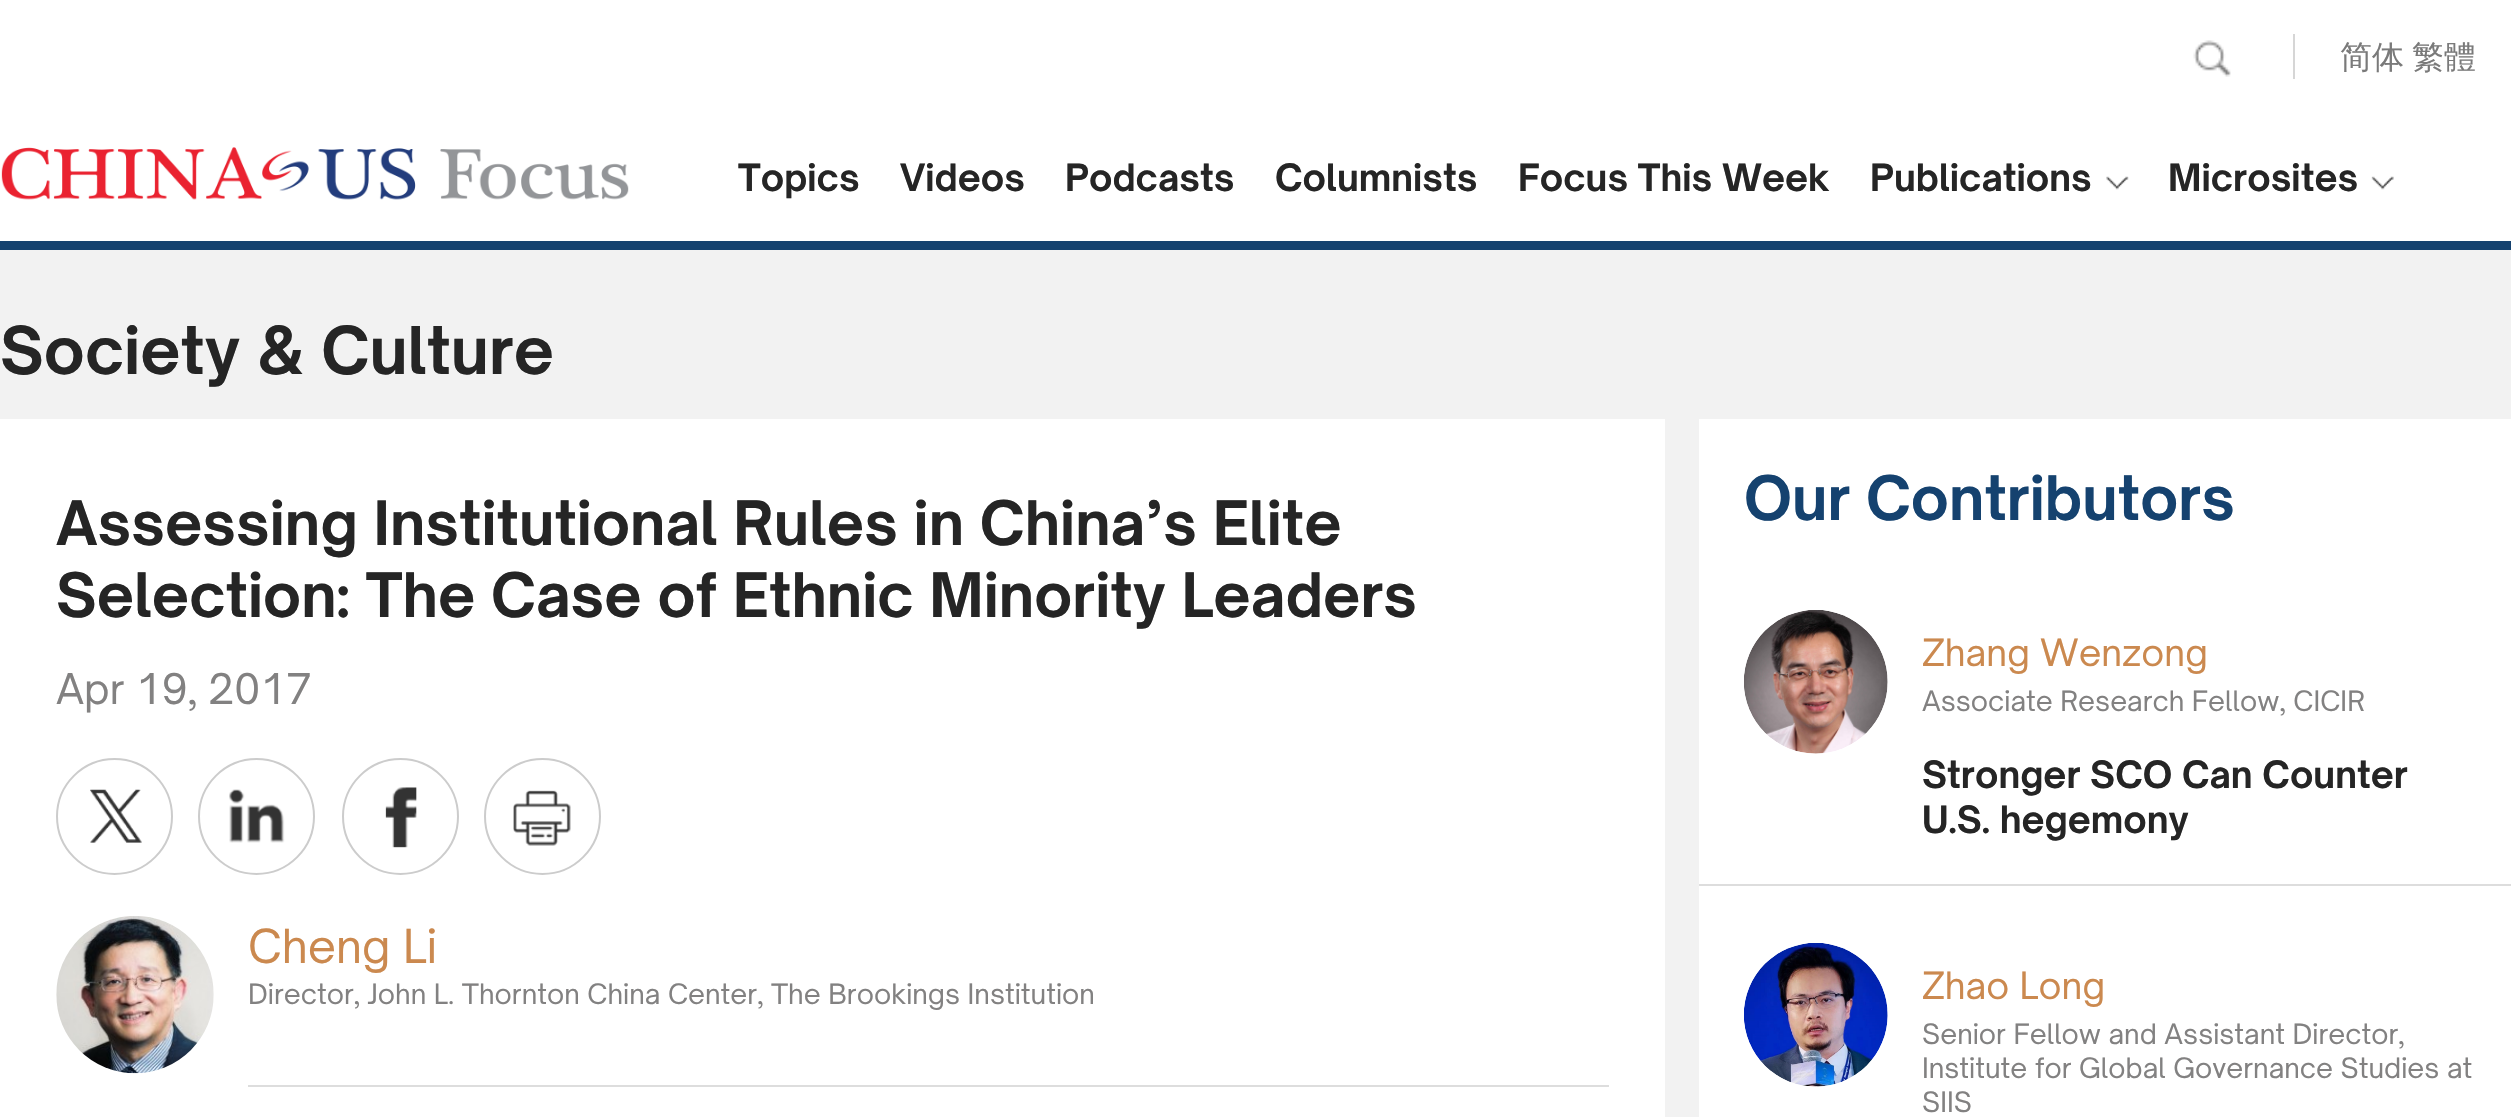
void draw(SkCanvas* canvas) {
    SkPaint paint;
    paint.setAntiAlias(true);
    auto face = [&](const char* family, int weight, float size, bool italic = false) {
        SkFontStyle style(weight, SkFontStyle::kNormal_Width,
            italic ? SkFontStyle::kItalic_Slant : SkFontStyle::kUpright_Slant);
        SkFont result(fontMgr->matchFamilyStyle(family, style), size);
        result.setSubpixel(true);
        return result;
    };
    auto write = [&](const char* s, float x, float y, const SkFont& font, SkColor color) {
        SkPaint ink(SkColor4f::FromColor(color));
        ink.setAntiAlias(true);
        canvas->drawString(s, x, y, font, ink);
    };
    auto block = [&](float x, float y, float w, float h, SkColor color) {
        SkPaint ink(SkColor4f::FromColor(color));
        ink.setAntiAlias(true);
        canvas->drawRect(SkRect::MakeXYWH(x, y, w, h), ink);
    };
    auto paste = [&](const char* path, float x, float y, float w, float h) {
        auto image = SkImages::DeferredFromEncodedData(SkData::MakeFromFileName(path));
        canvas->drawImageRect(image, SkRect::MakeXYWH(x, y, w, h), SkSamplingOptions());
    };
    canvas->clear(SkColorSetRGB(242, 242, 242));
    block(0, 0, 2511, 241, SK_ColorWHITE);
    block(0, 241, 2511, 9, SkColorSetRGB(21, 66, 111));
    paste("pic1.png", 2193, 40, 38, 37);
    block(2293, 34, 2, 45, SkColorSetRGB(214, 214, 214));
    auto kFont1 = face("WenQuanYi Zen Hei", 500, 32);
    write("简体", 2340, 68, kFont1, SkColorSetRGB(122, 122, 122));
    write("繁體", 2412, 68, kFont1, SkColorSetRGB(122, 122, 122));
    paste("pic2.png", 1, 147, 628, 53);
    auto kFont2 = face("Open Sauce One", 700, 36);
    write("Topics", 738, 191, kFont2, SkColorSetRGB(37, 37, 37));
    write("Videos", 900, 191, kFont2, SkColorSetRGB(37, 37, 37));
    write("Podcasts", 1065, 191, kFont2, SkColorSetRGB(37, 37, 37));
    write("Columnists", 1275, 191, kFont2, SkColorSetRGB(37, 37, 37));
    write("Focus This Week", 1518, 191, kFont2, SkColorSetRGB(37, 37, 37));
    write("Publications", 1870, 191, kFont2, SkColorSetRGB(37, 37, 37));
    paste("pic3.png", 2106, 176, 23, 14);
    write("Microsites", 2168, 191, kFont2, SkColorSetRGB(37, 37, 37));
    paste("pic4.png", 2371, 176, 23, 14);
    auto kFont3 = face("Open Sauce One", 700, 63);
    write("Society & Culture", 0, 374, kFont3, SkColorSetRGB(37, 37, 37));
    block(0, 419, 1665, 698, SK_ColorWHITE);
    auto kFont4 = face("Open Sauce One", 700, 58.5f);
    write("Assessing Institutional Rules in China’s Elite", 56, 545, kFont4, SkColorSetRGB(37, 37, 37));
    write("Selection: The Case of Ethnic Minority Leaders", 56, 617, kFont4, SkColorSetRGB(37, 37, 37));
    auto kFont5 = face("Open Sauce One", 400, 40.5f);
    write("Apr 19, 2017", 56, 704, kFont5, SkColorSetRGB(130, 129, 129));
    paint.setStyle(SkPaint::kStroke_Style);
    paint.setStrokeWidth(2);
    paint.setColor(SkColorSetRGB(204, 204, 204));
    canvas->drawCircle(114.5f, 816.5f, 57.5f, paint);
    paste("pic5.png", 90, 789, 52, 54);
    canvas->drawCircle(256.5f, 816.5f, 57.5f, paint);
    paste("pic6.png", 229, 789, 56, 54);
    canvas->drawCircle(400.5f, 816.5f, 57.5f, paint);
    paste("pic7.png", 385, 787, 32, 61);
    canvas->drawCircle(542.5f, 816.5f, 57.5f, paint);
    paste("pic8.png", 513, 790, 58, 56);
    paste("pic9.png", 56, 916, 158, 158);
    block(248, 1085, 1361, 2, SkColorSetRGB(221, 221, 221));
    auto kFont6 = face("Open Sauce One", 400, 45);
    write("Cheng Li", 248, 963, kFont6, SkColorSetRGB(203, 137, 79));
    auto kFont7 = face("Open Sauce One", 400, 27);
    write("Director, John L. Thornton China Center, The Brookings Institution", 248, 1004, kFont7, SkColorSetRGB(130, 129, 129));
    block(1699, 419, 812, 698, SK_ColorWHITE);
    write("Our Contributors", 1744, 520, kFont4, SkColorSetRGB(21, 66, 111));
    paste("pic10.png", 1744, 610, 144, 144);
    auto kFont8 = face("Open Sauce One", 400, 36);
    write("Zhang Wenzong", 1922, 666, kFont8, SkColorSetRGB(203, 137, 79));
    write("Associate Research Fellow, CICIR", 1922, 711, kFont7, SkColorSetRGB(130, 129, 129));
    write("Stronger SCO Can Counter", 1922, 788, kFont2, SkColorSetRGB(37, 37, 37));
    write("U.S. hegemony", 1922, 833, kFont2, SkColorSetRGB(37, 37, 37));
    block(1699, 884, 812, 2, SkColorSetRGB(221, 221, 221));
    paste("pic11.png", 1744, 943, 144, 144);
    write("Zhao Long", 1922, 999, kFont8, SkColorSetRGB(203, 137, 79));
    write("Senior Fellow and Assistant Director,", 1922, 1044, kFont7, SkColorSetRGB(130, 129, 129));
    write("Institute for Global Governance Studies at", 1922, 1078, kFont7, SkColorSetRGB(130, 129, 129));
    write("SIIS", 1922, 1112, kFont7, SkColorSetRGB(130, 129, 129));
}
